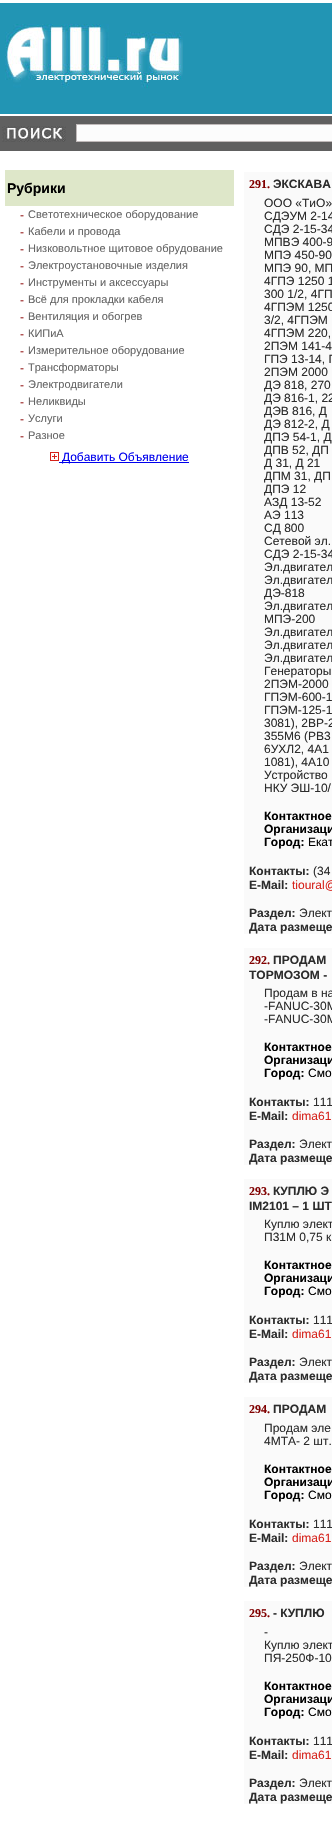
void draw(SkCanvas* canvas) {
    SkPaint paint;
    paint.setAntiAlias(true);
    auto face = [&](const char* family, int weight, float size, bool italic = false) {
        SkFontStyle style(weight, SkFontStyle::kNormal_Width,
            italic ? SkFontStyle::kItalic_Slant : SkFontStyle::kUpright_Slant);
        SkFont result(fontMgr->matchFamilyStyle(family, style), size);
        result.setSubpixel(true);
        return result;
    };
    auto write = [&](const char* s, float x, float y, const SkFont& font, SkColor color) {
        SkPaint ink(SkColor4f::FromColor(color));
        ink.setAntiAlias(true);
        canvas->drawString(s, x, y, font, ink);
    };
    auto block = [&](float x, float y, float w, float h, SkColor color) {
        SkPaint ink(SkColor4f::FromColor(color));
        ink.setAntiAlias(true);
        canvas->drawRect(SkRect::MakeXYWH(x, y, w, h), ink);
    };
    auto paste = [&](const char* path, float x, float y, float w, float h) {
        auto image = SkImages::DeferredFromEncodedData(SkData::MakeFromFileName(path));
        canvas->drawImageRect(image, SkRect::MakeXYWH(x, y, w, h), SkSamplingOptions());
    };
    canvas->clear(SK_ColorWHITE);
    block(0, 3, 332, 111, SkColorSetRGB(34, 149, 180));
    paste("pic1.png", 5, 24, 178, 64);
    block(0, 116, 332, 35, SkColorSetRGB(96, 96, 96));
    paste("pic2.png", 2, 126, 64, 16);
    paint.setColor(SkColorSetRGB(252, 252, 252));
    canvas->drawRect(SkRect::MakeXYWH(76.5f, 124.5f, 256, 17), paint);
    paint.setStyle(SkPaint::kStroke_Style);
    paint.setStrokeWidth(1);
    paint.setColor(SkColorSetRGB(192, 186, 186));
    canvas->drawRect(SkRect::MakeXYWH(76.5f, 124.5f, 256, 17), paint);
    block(5, 170, 229, 36, SkColorSetRGB(222, 231, 201));
    auto kFont1 = face("Liberation Sans", 700, 14);
    write("Рубрики", 7, 193, kFont1, SK_ColorBLACK);
    auto kFont2 = face("Liberation Sans", 400, 12);
    write("-", 20, 219, kFont2, SkColorSetRGB(150, 25, 25));
    auto kFont3 = face("Liberation Sans", 400, 11);
    write("Светотехническое оборудование", 28, 218, kFont3, SkColorSetRGB(100, 100, 100));
    write("-", 20, 236, kFont2, SkColorSetRGB(150, 25, 25));
    write("Кабели и провода", 28, 235, kFont3, SkColorSetRGB(100, 100, 100));
    write("-", 20, 253, kFont2, SkColorSetRGB(150, 25, 25));
    write("Низковольтное щитовое обрудование", 28, 252, kFont3, SkColorSetRGB(100, 100, 100));
    write("-", 20, 270, kFont2, SkColorSetRGB(150, 25, 25));
    write("Электроустановочные изделия", 28, 269, kFont3, SkColorSetRGB(100, 100, 100));
    write("-", 20, 287, kFont2, SkColorSetRGB(150, 25, 25));
    write("Инструменты и аксессуары", 28, 286, kFont3, SkColorSetRGB(100, 100, 100));
    write("-", 20, 304, kFont2, SkColorSetRGB(150, 25, 25));
    write("Всё для прокладки кабеля", 28, 303, kFont3, SkColorSetRGB(100, 100, 100));
    write("-", 20, 321, kFont2, SkColorSetRGB(150, 25, 25));
    write("Вентиляция и обогрев", 28, 320, kFont3, SkColorSetRGB(100, 100, 100));
    write("-", 20, 338, kFont2, SkColorSetRGB(150, 25, 25));
    write("КИПиА", 28, 337, kFont3, SkColorSetRGB(100, 100, 100));
    write("-", 20, 355, kFont2, SkColorSetRGB(150, 25, 25));
    write("Измерительное оборудование", 28, 354, kFont3, SkColorSetRGB(100, 100, 100));
    write("-", 20, 372, kFont2, SkColorSetRGB(150, 25, 25));
    write("Трансформаторы", 28, 371, kFont3, SkColorSetRGB(100, 100, 100));
    write("-", 20, 389, kFont2, SkColorSetRGB(150, 25, 25));
    write("Электродвигатели", 28, 388, kFont3, SkColorSetRGB(100, 100, 100));
    write("-", 20, 406, kFont2, SkColorSetRGB(150, 25, 25));
    write("Неликвиды", 28, 405, kFont3, SkColorSetRGB(100, 100, 100));
    write("-", 20, 423, kFont2, SkColorSetRGB(150, 25, 25));
    write("Услуги", 28, 422, kFont3, SkColorSetRGB(100, 100, 100));
    write("-", 20, 440, kFont2, SkColorSetRGB(150, 25, 25));
    write("Разное", 28, 439, kFont3, SkColorSetRGB(100, 100, 100));
    paste("pic3.png", 50, 452, 9, 9);
    block(59, 462, 130, 1, SkColorSetRGB(0, 0, 238));
    write("Добавить Объявление", 62, 461, kFont2, SkColorSetRGB(0, 0, 238));
    block(244, 172, 88, 762, SkColorSetRGB(250, 250, 250));
    auto kFont4 = face("Liberation Serif", 700, 12);
    write("291.", 249, 188, kFont4, SkColorSetRGB(128, 0, 0));
    auto kFont5 = face("Liberation Sans", 700, 12);
    write("ЭКСКАВА", 273, 188, kFont5, SkColorSetRGB(44, 44, 44));
    write("ООО «ТиО»", 264, 207, kFont2, SkColorSetRGB(44, 44, 44));
    write("СДЭУМ 2-14", 264, 220, kFont2, SkColorSetRGB(44, 44, 44));
    write("СДЭ 2-15-34", 264, 233, kFont2, SkColorSetRGB(44, 44, 44));
    write("МПВЭ 400-9", 264, 246, kFont2, SkColorSetRGB(44, 44, 44));
    write("МПЭ 450-90", 264, 259, kFont2, SkColorSetRGB(44, 44, 44));
    write("МПЭ 90, МП", 264, 272, kFont2, SkColorSetRGB(44, 44, 44));
    write("4ГПЭ 1250 1", 264, 285, kFont2, SkColorSetRGB(44, 44, 44));
    write("300 1/2, 4ГП", 264, 298, kFont2, SkColorSetRGB(44, 44, 44));
    write("4ГПЭМ 1250", 264, 311, kFont2, SkColorSetRGB(44, 44, 44));
    write("3/2, 4ГПЭМ", 264, 324, kFont2, SkColorSetRGB(44, 44, 44));
    write("4ГПЭМ 220,", 264, 337, kFont2, SkColorSetRGB(44, 44, 44));
    write("2ПЭМ 141-4", 264, 350, kFont2, SkColorSetRGB(44, 44, 44));
    write("ГПЭ 13-14, Г", 264, 363, kFont2, SkColorSetRGB(44, 44, 44));
    write("2ПЭМ 2000", 264, 376, kFont2, SkColorSetRGB(44, 44, 44));
    write("ДЭ 818, 270", 264, 389, kFont2, SkColorSetRGB(44, 44, 44));
    write("ДЭ 816-1, 22", 264, 402, kFont2, SkColorSetRGB(44, 44, 44));
    write("ДЭВ 816, Д", 264, 415, kFont2, SkColorSetRGB(44, 44, 44));
    write("ДЭ 812-2, Д", 264, 428, kFont2, SkColorSetRGB(44, 44, 44));
    write("ДПЭ 54-1, Д", 264, 441, kFont2, SkColorSetRGB(44, 44, 44));
    write("ДПВ 52, ДП", 264, 454, kFont2, SkColorSetRGB(44, 44, 44));
    write("Д 31, Д 21", 264, 467, kFont2, SkColorSetRGB(44, 44, 44));
    write("ДПМ 31, ДП", 264, 480, kFont2, SkColorSetRGB(44, 44, 44));
    write("ДПЭ 12", 264, 493, kFont2, SkColorSetRGB(44, 44, 44));
    write("АЗД 13-52", 264, 506, kFont2, SkColorSetRGB(44, 44, 44));
    write("АЭ 113", 264, 519, kFont2, SkColorSetRGB(44, 44, 44));
    write("СД 800", 264, 532, kFont2, SkColorSetRGB(44, 44, 44));
    write("Сетевой эл.", 264, 545, kFont2, SkColorSetRGB(44, 44, 44));
    write("СДЭ 2-15-34", 264, 558, kFont2, SkColorSetRGB(44, 44, 44));
    write("Эл.двигател", 264, 571, kFont2, SkColorSetRGB(44, 44, 44));
    write("Эл.двигател", 264, 584, kFont2, SkColorSetRGB(44, 44, 44));
    write("ДЭ-818", 264, 597, kFont2, SkColorSetRGB(44, 44, 44));
    write("Эл.двигател", 264, 610, kFont2, SkColorSetRGB(44, 44, 44));
    write("МПЭ-200", 264, 623, kFont2, SkColorSetRGB(44, 44, 44));
    write("Эл.двигател", 264, 636, kFont2, SkColorSetRGB(44, 44, 44));
    write("Эл.двигател", 264, 649, kFont2, SkColorSetRGB(44, 44, 44));
    write("Эл.двигател", 264, 662, kFont2, SkColorSetRGB(44, 44, 44));
    write("Генераторы", 264, 675, kFont2, SkColorSetRGB(44, 44, 44));
    write("2ПЭМ-2000", 264, 688, kFont2, SkColorSetRGB(44, 44, 44));
    write("ГПЭМ-600-1", 264, 701, kFont2, SkColorSetRGB(44, 44, 44));
    write("ГПЭМ-125-1", 264, 714, kFont2, SkColorSetRGB(44, 44, 44));
    write("3081), 2ВР-2", 264, 727, kFont2, SkColorSetRGB(44, 44, 44));
    write("355М6 (РВ3", 264, 740, kFont2, SkColorSetRGB(44, 44, 44));
    write("6УХЛ2, 4А1", 264, 753, kFont2, SkColorSetRGB(44, 44, 44));
    write("1081), 4A10", 264, 766, kFont2, SkColorSetRGB(44, 44, 44));
    write("Устройство", 264, 779, kFont2, SkColorSetRGB(44, 44, 44));
    write("НКУ ЭШ-10/", 264, 792, kFont2, SkColorSetRGB(44, 44, 44));
    write("Контактное", 264, 820, kFont5, SK_ColorBLACK);
    write("Организаци", 264, 833, kFont5, SK_ColorBLACK);
    write("Город:", 264, 846, kFont5, SK_ColorBLACK);
    write("Екат", 308, 846, kFont2, SK_ColorBLACK);
    write("Контакты:", 249, 875, kFont5, SkColorSetRGB(44, 44, 44));
    write("(34", 313, 875, kFont2, SkColorSetRGB(44, 44, 44));
    write("E-Mail:", 249, 889, kFont5, SkColorSetRGB(44, 44, 44));
    write("tioural@", 292, 889, kFont2, SkColorSetRGB(214, 34, 27));
    write("Раздел:", 249, 917, kFont5, SkColorSetRGB(44, 44, 44));
    write("Элект", 299, 917, kFont2, SkColorSetRGB(44, 44, 44));
    write("Дата размеще", 249, 931, kFont5, SkColorSetRGB(44, 44, 44));
    block(244, 948, 88, 217, SkColorSetRGB(250, 250, 250));
    write("292.", 249, 964, kFont4, SkColorSetRGB(128, 0, 0));
    write("ПРОДАМ", 273, 964, kFont5, SkColorSetRGB(44, 44, 44));
    write("ТОРМОЗОМ -", 249, 979, kFont5, SkColorSetRGB(44, 44, 44));
    write("Продам в на", 264, 997, kFont2, SkColorSetRGB(44, 44, 44));
    write("-FANUC-30М", 264, 1010, kFont2, SkColorSetRGB(44, 44, 44));
    write("-FANUC-30М", 264, 1023, kFont2, SkColorSetRGB(44, 44, 44));
    write("Контактное", 264, 1051, kFont5, SK_ColorBLACK);
    write("Организаци", 264, 1064, kFont5, SK_ColorBLACK);
    write("Город:", 264, 1077, kFont5, SK_ColorBLACK);
    write("Смо", 308, 1077, kFont2, SK_ColorBLACK);
    write("Контакты:", 249, 1106, kFont5, SkColorSetRGB(44, 44, 44));
    write("111", 313, 1106, kFont2, SkColorSetRGB(44, 44, 44));
    write("E-Mail:", 249, 1120, kFont5, SkColorSetRGB(44, 44, 44));
    write("dima61", 292, 1120, kFont2, SkColorSetRGB(214, 34, 27));
    write("Раздел:", 249, 1148, kFont5, SkColorSetRGB(44, 44, 44));
    write("Элект", 299, 1148, kFont2, SkColorSetRGB(44, 44, 44));
    write("Дата размеще", 249, 1162, kFont5, SkColorSetRGB(44, 44, 44));
    block(244, 1179, 88, 204, SkColorSetRGB(250, 250, 250));
    write("293.", 249, 1195, kFont4, SkColorSetRGB(128, 0, 0));
    write("КУПЛЮ Э", 273, 1195, kFont5, SkColorSetRGB(44, 44, 44));
    write("IM2101 – 1 ШТ", 249, 1210, kFont5, SkColorSetRGB(44, 44, 44));
    write("Куплю элект", 264, 1228, kFont2, SkColorSetRGB(44, 44, 44));
    write("П31М 0,75 к", 264, 1241, kFont2, SkColorSetRGB(44, 44, 44));
    write("Контактное", 264, 1269, kFont5, SK_ColorBLACK);
    write("Организаци", 264, 1282, kFont5, SK_ColorBLACK);
    write("Город:", 264, 1295, kFont5, SK_ColorBLACK);
    write("Смо", 308, 1295, kFont2, SK_ColorBLACK);
    write("Контакты:", 249, 1324, kFont5, SkColorSetRGB(44, 44, 44));
    write("111", 313, 1324, kFont2, SkColorSetRGB(44, 44, 44));
    write("E-Mail:", 249, 1338, kFont5, SkColorSetRGB(44, 44, 44));
    write("dima61", 292, 1338, kFont2, SkColorSetRGB(214, 34, 27));
    write("Раздел:", 249, 1366, kFont5, SkColorSetRGB(44, 44, 44));
    write("Элект", 299, 1366, kFont2, SkColorSetRGB(44, 44, 44));
    write("Дата размеще", 249, 1380, kFont5, SkColorSetRGB(44, 44, 44));
    block(244, 1397, 88, 190, SkColorSetRGB(250, 250, 250));
    write("294.", 249, 1413, kFont4, SkColorSetRGB(128, 0, 0));
    write("ПРОДАМ", 273, 1413, kFont5, SkColorSetRGB(44, 44, 44));
    write("Продам эле", 264, 1432, kFont2, SkColorSetRGB(44, 44, 44));
    write("4МТА- 2 шт.", 264, 1445, kFont2, SkColorSetRGB(44, 44, 44));
    write("Контактное", 264, 1473, kFont5, SK_ColorBLACK);
    write("Организаци", 264, 1486, kFont5, SK_ColorBLACK);
    write("Город:", 264, 1499, kFont5, SK_ColorBLACK);
    write("Смо", 308, 1499, kFont2, SK_ColorBLACK);
    write("Контакты:", 249, 1528, kFont5, SkColorSetRGB(44, 44, 44));
    write("111", 313, 1528, kFont2, SkColorSetRGB(44, 44, 44));
    write("E-Mail:", 249, 1542, kFont5, SkColorSetRGB(44, 44, 44));
    write("dima61", 292, 1542, kFont2, SkColorSetRGB(214, 34, 27));
    write("Раздел:", 249, 1570, kFont5, SkColorSetRGB(44, 44, 44));
    write("Элект", 299, 1570, kFont2, SkColorSetRGB(44, 44, 44));
    write("Дата размеще", 249, 1584, kFont5, SkColorSetRGB(44, 44, 44));
    block(244, 1601, 88, 203, SkColorSetRGB(250, 250, 250));
    write("295.", 249, 1617, kFont4, SkColorSetRGB(128, 0, 0));
    write("- КУПЛЮ", 273, 1617, kFont5, SkColorSetRGB(44, 44, 44));
    write("-", 264, 1636, kFont2, SkColorSetRGB(44, 44, 44));
    write("Куплю элект", 264, 1649, kFont2, SkColorSetRGB(44, 44, 44));
    write("ПЯ-250Ф-10", 264, 1662, kFont2, SkColorSetRGB(44, 44, 44));
    write("Контактное", 264, 1690, kFont5, SK_ColorBLACK);
    write("Организаци", 264, 1703, kFont5, SK_ColorBLACK);
    write("Город:", 264, 1716, kFont5, SK_ColorBLACK);
    write("Смо", 308, 1716, kFont2, SK_ColorBLACK);
    write("Контакты:", 249, 1745, kFont5, SkColorSetRGB(44, 44, 44));
    write("111", 313, 1745, kFont2, SkColorSetRGB(44, 44, 44));
    write("E-Mail:", 249, 1759, kFont5, SkColorSetRGB(44, 44, 44));
    write("dima61", 292, 1759, kFont2, SkColorSetRGB(214, 34, 27));
    write("Раздел:", 249, 1787, kFont5, SkColorSetRGB(44, 44, 44));
    write("Элект", 299, 1787, kFont2, SkColorSetRGB(44, 44, 44));
    write("Дата размеще", 249, 1801, kFont5, SkColorSetRGB(44, 44, 44));
}
